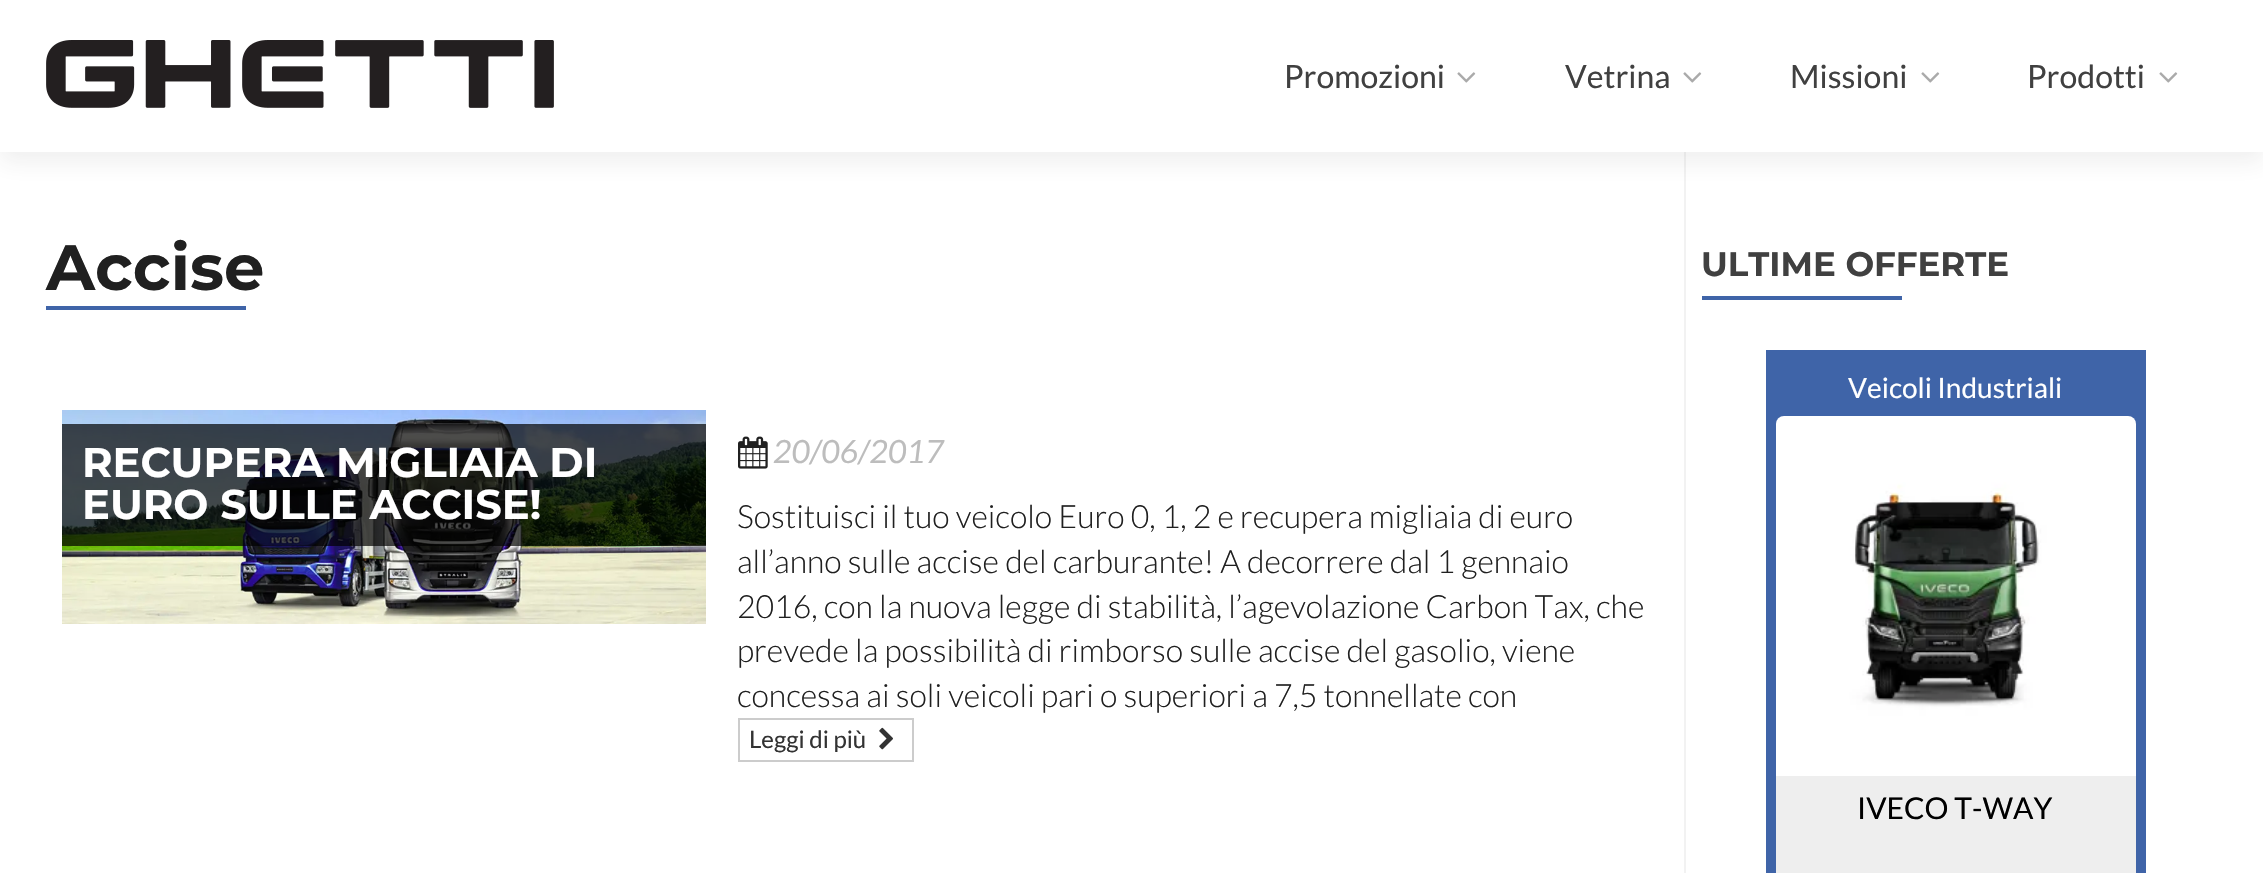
void draw(SkCanvas* canvas) {
    SkPaint paint;
    paint.setAntiAlias(true);
    auto face = [&](const char* family, int weight, float size, bool italic = false) {
        SkFontStyle style(weight, SkFontStyle::kNormal_Width,
            italic ? SkFontStyle::kItalic_Slant : SkFontStyle::kUpright_Slant);
        SkFont result(fontMgr->matchFamilyStyle(family, style), size);
        result.setSubpixel(true);
        return result;
    };
    auto write = [&](const char* s, float x, float y, const SkFont& font, SkColor color) {
        SkPaint ink(SkColor4f::FromColor(color));
        ink.setAntiAlias(true);
        canvas->drawString(s, x, y, font, ink);
    };
    auto block = [&](float x, float y, float w, float h, SkColor color) {
        SkPaint ink(SkColor4f::FromColor(color));
        ink.setAntiAlias(true);
        canvas->drawRect(SkRect::MakeXYWH(x, y, w, h), ink);
    };
    auto paste = [&](const char* path, float x, float y, float w, float h) {
        auto image = SkImages::DeferredFromEncodedData(SkData::MakeFromFileName(path));
        canvas->drawImageRect(image, SkRect::MakeXYWH(x, y, w, h), SkSamplingOptions());
    };
    canvas->clear(SK_ColorWHITE);
    block(1684, 150, 2, 723, SkColorSetRGB(242, 242, 242));
    paint.setColor(SkColorSetARGB(20, 50, 50, 50));
    paint.setMaskFilter(SkMaskFilter::MakeBlur(kNormal_SkBlurStyle, 11));
    canvas->drawRect(SkRect::MakeXYWH(0, 10, 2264, 152), paint);
    paint.setMaskFilter(nullptr);
    block(0, 0, 2263, 152, SK_ColorWHITE);
    paste("pic1.png", 46, 40, 508, 68);
    auto kFont1 = face("Lato", 400, 32);
    write("Promozioni", 1284, 88, kFont1, SkColorSetRGB(64, 64, 64));
    paste("pic2.png", 1457, 72, 19, 11);
    write("Vetrina", 1565, 88, kFont1, SkColorSetRGB(64, 64, 64));
    paste("pic2.png", 1683, 72, 19, 11);
    write("Missioni", 1790, 88, kFont1, SkColorSetRGB(64, 64, 64));
    paste("pic2.png", 1921, 72, 19, 11);
    write("Prodotti", 2027, 88, kFont1, SkColorSetRGB(64, 64, 64));
    paste("pic2.png", 2159, 72, 19, 11);
    auto kFont2 = face("Montserrat", 100, 64);
    write("Accise", 46, 290, kFont2, SkColorSetRGB(32, 32, 32));
    block(46, 306, 200, 4, SkColorSetRGB(63, 100, 168));
    paste("pic3.png", 62, 410, 644, 214);
    block(62, 424, 644, 122, SkColorSetARGB(179, 0, 0, 0));
    auto kFont3 = face("Montserrat", 100, 41.6f);
    write("RECUPERA MIGLIAIA DI", 82, 477, kFont3, SK_ColorWHITE);
    write("EURO SULLE ACCISE!", 82, 519, kFont3, SK_ColorWHITE);
    paste("pic4.png", 738, 436, 30, 33);
    auto kFont4 = face("Lato", 400, 32, true);
    write("20/06/2017", 773, 463, kFont4, SkColorSetRGB(189, 189, 189));
    auto kFont5 = face("Lato", 300, 32);
    write("Sostituisci il tuo veicolo Euro 0, 1, 2 e recupera migliaia di euro", 737, 528, kFont5, SkColorSetRGB(32, 32, 32));
    write("all’anno sulle accise del carburante! A decorrere dal 1 gennaio", 737, 573, kFont5, SkColorSetRGB(32, 32, 32));
    write("2016, con la nuova legge di stabilità, l’agevolazione Carbon Tax, che", 737, 618, kFont5, SkColorSetRGB(32, 32, 32));
    write("prevede la possibilità di rimborso sulle accise del gasolio, viene", 737, 662, kFont5, SkColorSetRGB(32, 32, 32));
    write("concessa ai soli veicoli pari o superiori a 7,5 tonnellate con", 737, 707, kFont5, SkColorSetRGB(32, 32, 32));
    paint.setStyle(SkPaint::kStroke_Style);
    paint.setStrokeWidth(2);
    paint.setColor(SkColorSetRGB(204, 204, 204));
    canvas->drawRect(SkRect::MakeXYWH(739, 719, 174, 42), paint);
    auto kFont6 = face("Lato", 400, 24);
    write("Leggi di più", 749, 748, kFont6, SkColorSetRGB(51, 51, 51));
    paste("pic5.png", 879, 727, 14, 23);
    auto kFont7 = face("Montserrat", 100, 34);
    write("ULTIME OFFERTE", 1701, 276, kFont7, SkColorSetRGB(64, 64, 64));
    block(1702, 296, 200, 4, SkColorSetRGB(63, 100, 168));
    block(1766, 350, 380, 523, SkColorSetRGB(63, 100, 168));
    auto kFont8 = face("Lato", 400, 28);
    write("Veicoli Industriali", 1848, 398, kFont8, SK_ColorWHITE);
    paste("pic6.png", 1776, 416, 360, 360);
    block(1776, 776, 360, 97, SkColorSetRGB(238, 238, 238));
    auto kFont9 = face("Lato", 400, 30);
    write("IVECO T-WAY", 1857, 819, kFont9, SK_ColorBLACK);
}
